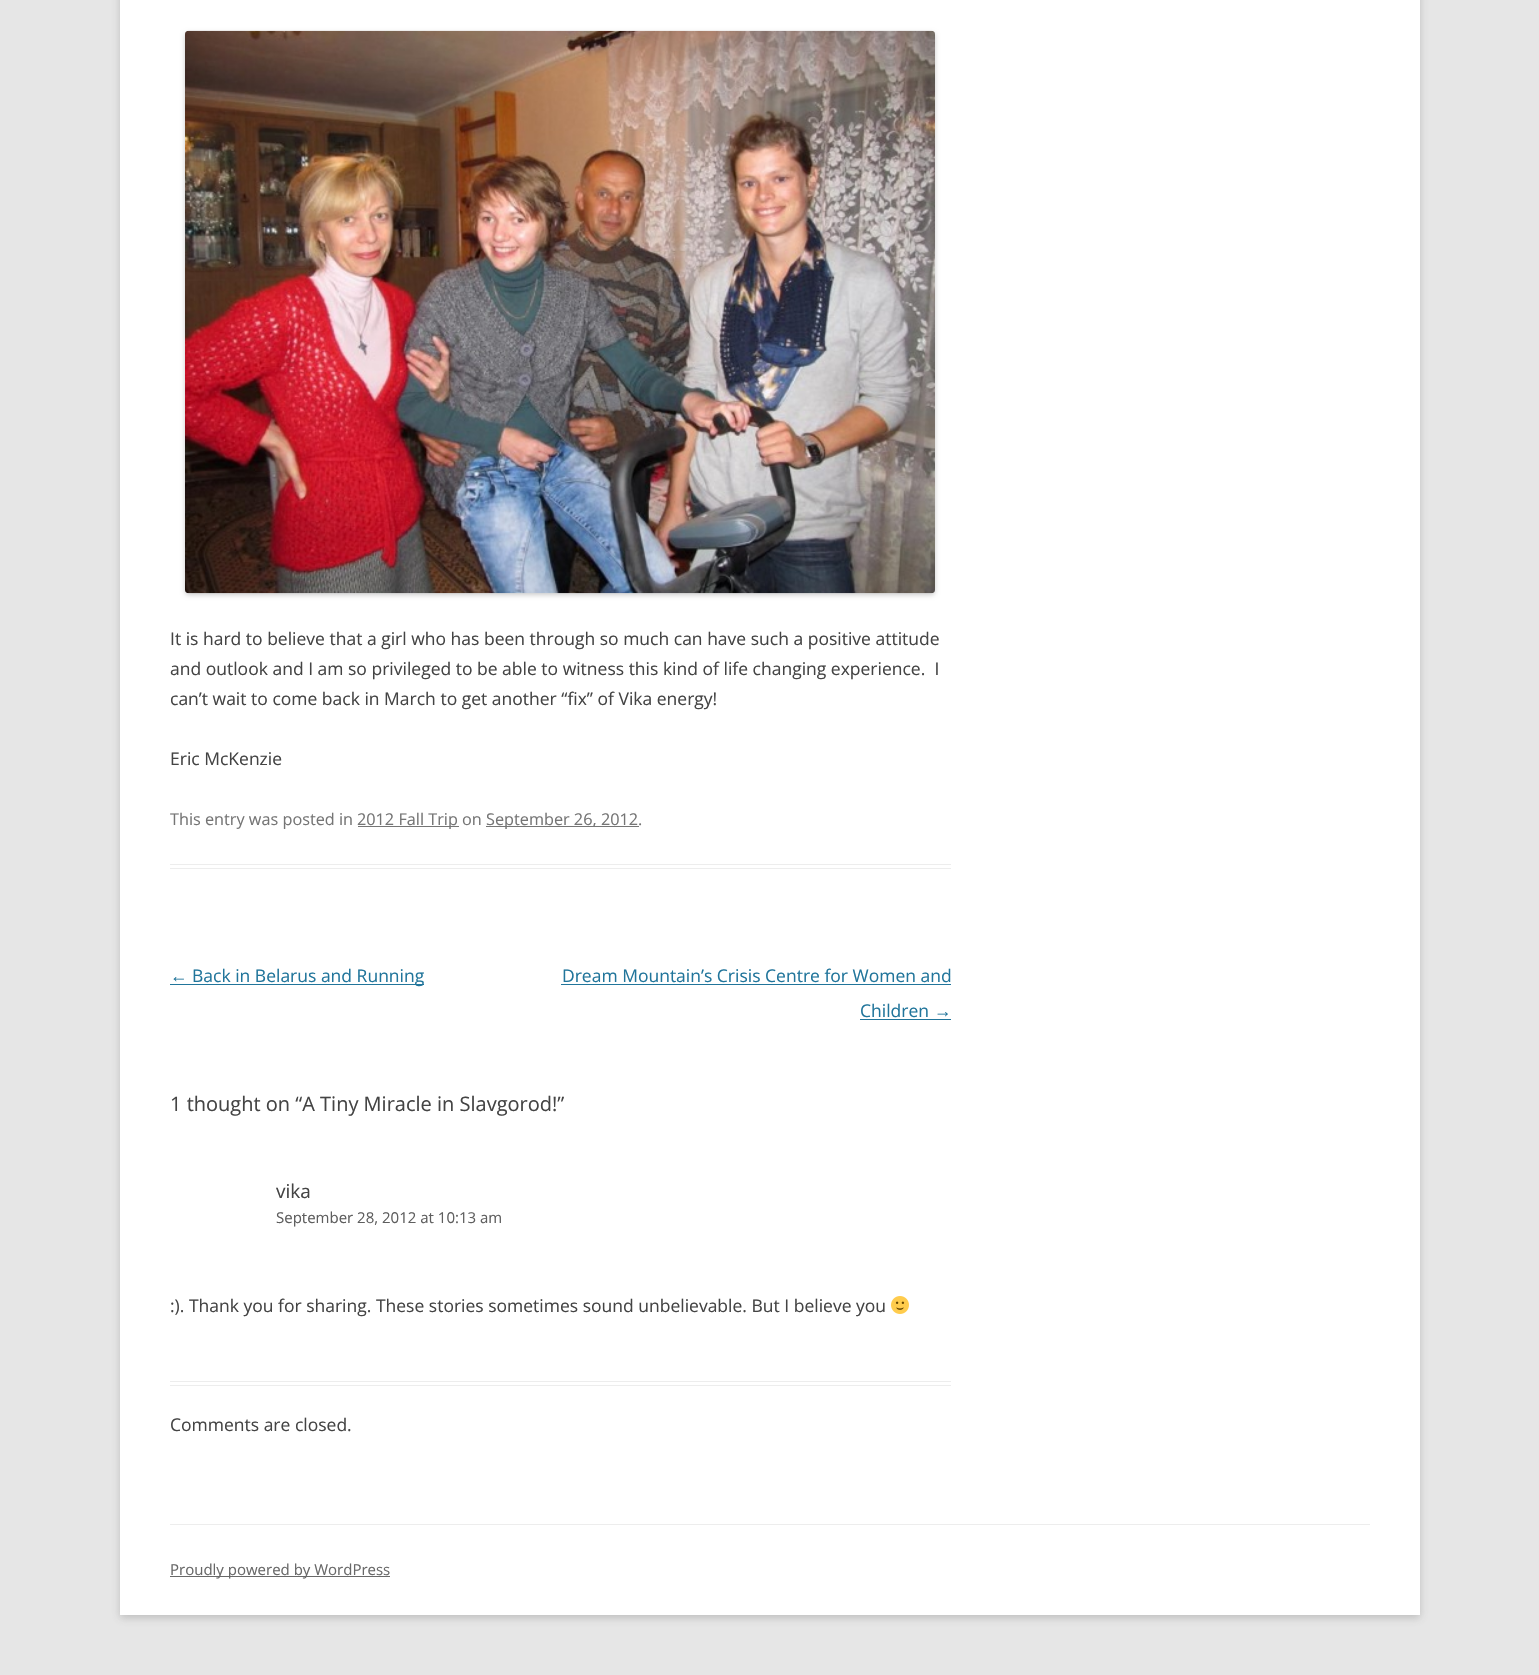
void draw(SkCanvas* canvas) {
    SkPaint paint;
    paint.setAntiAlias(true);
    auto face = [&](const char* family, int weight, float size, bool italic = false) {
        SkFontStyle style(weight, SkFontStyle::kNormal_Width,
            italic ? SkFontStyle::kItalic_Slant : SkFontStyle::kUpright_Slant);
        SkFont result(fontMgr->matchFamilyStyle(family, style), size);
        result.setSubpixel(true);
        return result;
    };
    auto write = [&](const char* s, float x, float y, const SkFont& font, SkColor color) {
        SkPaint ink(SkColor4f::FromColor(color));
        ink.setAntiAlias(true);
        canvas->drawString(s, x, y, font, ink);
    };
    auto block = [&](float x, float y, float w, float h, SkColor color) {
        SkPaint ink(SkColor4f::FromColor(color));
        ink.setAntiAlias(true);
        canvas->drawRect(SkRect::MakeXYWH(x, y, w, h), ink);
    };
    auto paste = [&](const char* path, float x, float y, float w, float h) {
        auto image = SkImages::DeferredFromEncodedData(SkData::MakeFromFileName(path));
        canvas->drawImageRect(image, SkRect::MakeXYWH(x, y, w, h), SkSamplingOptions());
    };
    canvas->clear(SkColorSetRGB(230, 230, 230));
    paint.setColor(SkColorSetARGB(77, 100, 100, 100));
    paint.setMaskFilter(SkMaskFilter::MakeBlur(kNormal_SkBlurStyle, 4));
    canvas->drawRect(SkRect::MakeXYWH(120, -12, 1300, 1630), paint);
    paint.setMaskFilter(nullptr);
    block(120, 0, 1300, 1615, SK_ColorWHITE);
    block(170, 864, 781, 1, SkColorSetRGB(237, 237, 237));
    block(170, 868, 781, 1, SkColorSetRGB(237, 237, 237));
    paint.setColor(SkColorSetARGB(51, 0, 0, 0));
    paint.setMaskFilter(SkMaskFilter::MakeBlur(kNormal_SkBlurStyle, 2.5f));
    canvas->drawRoundRect(SkRect::MakeXYWH(185, 33, 750, 562), 4, 4, paint);
    paint.setMaskFilter(nullptr);
    paste("pic1.png", 185, 30, 750, 564);
    auto kFont1 = face("Open Sans", 400, 17.5f);
    write("It is hard to believe that a girl who has been through so much can have such a positive attitude", 170, 645, kFont1, SkColorSetRGB(68, 68, 68));
    write("and outlook and I am so privileged to be able to witness this kind of life changing experience.  I", 170, 675, kFont1, SkColorSetRGB(68, 68, 68));
    write("can’t wait to come back in March to get another “fix” of Vika energy!", 170, 705, kFont1, SkColorSetRGB(68, 68, 68));
    write("Eric McKenzie", 170, 765, kFont1, SkColorSetRGB(68, 68, 68));
    auto kFont2 = face("Open Sans", 400, 16.25f);
    write("This entry was posted in", 170, 825, kFont2, SkColorSetRGB(117, 117, 117));
    block(358, 826, 101, 1, SkColorSetRGB(117, 117, 117));
    write("2012 Fall Trip on", 357, 825, kFont2, SkColorSetRGB(117, 117, 117));
    block(486, 826, 153, 1, SkColorSetRGB(117, 117, 117));
    write("September 26, 2012.", 486, 825, kFont2, SkColorSetRGB(117, 117, 117));
    auto kFont3 = face("Liberation Sans", 400, 17.5f);
    write("←", 170, 982, kFont3, SkColorSetRGB(33, 117, 155));
    block(170, 984, 254, 1, SkColorSetRGB(33, 117, 155));
    write("Back in Belarus and Running", 192, 982, kFont1, SkColorSetRGB(33, 117, 155));
    write("Dream Mountain’s Crisis Centre for Women and", 562, 982, kFont1, SkColorSetRGB(33, 117, 155));
    block(561, 984, 390, 1, SkColorSetRGB(33, 117, 155));
    write("Children", 860, 1017, kFont1, SkColorSetRGB(33, 117, 155));
    write("→", 934, 1017, kFont3, SkColorSetRGB(33, 117, 155));
    block(860, 1019, 91, 1, SkColorSetRGB(33, 117, 155));
    auto kFont4 = face("Open Sans", 400, 20);
    write("1 thought on “A Tiny Miracle in Slavgorod!”", 170, 1111, kFont4, SkColorSetRGB(68, 68, 68));
    block(170, 1381, 781, 1, SkColorSetRGB(237, 237, 237));
    block(170, 1385, 781, 1, SkColorSetRGB(237, 237, 237));
    auto kFont5 = face("Open Sans", 400, 19);
    write("vika", 276, 1198, kFont5, SkColorSetRGB(68, 68, 68));
    auto kFont6 = face("Open Sans", 400, 15);
    write("September 28, 2012 at 10:13 am", 276, 1223, kFont6, SkColorSetRGB(94, 94, 94));
    write(":). Thank you for sharing. These stories sometimes sound unbelievable. But I believe you", 170, 1312, kFont1, SkColorSetRGB(68, 68, 68));
    paste("pic2.png", 891, 1296, 18, 18);
    write("Comments are closed.", 170, 1431, kFont1, SkColorSetRGB(68, 68, 68));
    block(170, 1524, 1200, 1, SkColorSetRGB(237, 237, 237));
    block(170, 1576, 220, 1, SkColorSetRGB(104, 104, 104));
    write("Proudly powered by WordPress", 170, 1575, kFont6, SkColorSetRGB(104, 104, 104));
}
